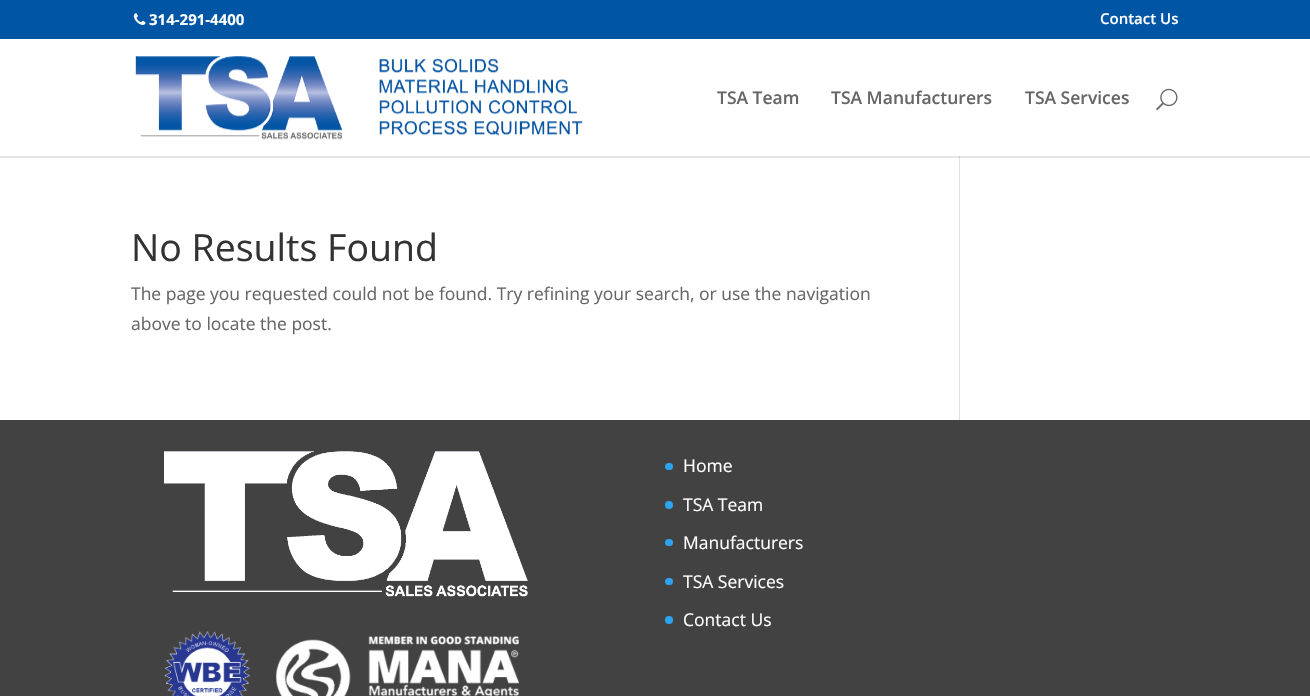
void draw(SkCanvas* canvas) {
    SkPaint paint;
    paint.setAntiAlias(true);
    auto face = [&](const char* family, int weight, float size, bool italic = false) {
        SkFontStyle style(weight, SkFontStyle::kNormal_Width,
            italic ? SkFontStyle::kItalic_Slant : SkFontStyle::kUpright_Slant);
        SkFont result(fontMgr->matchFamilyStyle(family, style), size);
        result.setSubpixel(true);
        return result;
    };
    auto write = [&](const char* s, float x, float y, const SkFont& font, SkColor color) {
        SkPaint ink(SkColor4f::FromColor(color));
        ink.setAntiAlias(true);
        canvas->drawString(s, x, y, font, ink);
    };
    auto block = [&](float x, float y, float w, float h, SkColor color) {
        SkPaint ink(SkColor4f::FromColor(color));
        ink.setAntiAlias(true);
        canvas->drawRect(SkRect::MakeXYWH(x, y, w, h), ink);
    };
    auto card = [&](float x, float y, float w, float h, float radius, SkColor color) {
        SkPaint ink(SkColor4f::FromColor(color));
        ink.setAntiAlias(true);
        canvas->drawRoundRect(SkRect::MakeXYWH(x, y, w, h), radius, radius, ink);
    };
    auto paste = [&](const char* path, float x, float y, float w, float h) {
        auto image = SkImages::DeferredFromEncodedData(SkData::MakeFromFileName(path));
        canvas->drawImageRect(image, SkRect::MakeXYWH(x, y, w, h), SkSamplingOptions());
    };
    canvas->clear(SK_ColorWHITE);
    block(0, 156, 1310, 2, SkColorSetRGB(230, 230, 230));
    block(0, 0, 1310, 39, SkColorSetRGB(0, 85, 165));
    paste("pic1.png", 133, 13, 13, 12);
    auto kFont1 = face("Open Sans", 700, 15);
    write("314-291-4400", 149, 25, kFont1, SK_ColorWHITE);
    auto kFont2 = face("Open Sans", 600, 15);
    write("Contact Us", 1100, 24, kFont2, SK_ColorWHITE);
    paste("pic2.png", 135, 56, 448, 84);
    auto kFont3 = face("Open Sans", 600, 17.5f);
    write("TSA Team", 717, 104, kFont3, SkColorSetRGB(102, 102, 102));
    write("TSA Manufacturers", 831, 104, kFont3, SkColorSetRGB(102, 102, 102));
    write("TSA Services", 1025, 104, kFont3, SkColorSetRGB(102, 102, 102));
    paste("pic3.png", 1156, 88, 22, 23);
    auto kFont4 = face("Open Sans", 400, 37.5f);
    write("No Results Found", 131, 261, kFont4, SkColorSetRGB(51, 51, 51));
    auto kFont5 = face("Open Sans", 400, 17.5f);
    write("The page you requested could not be found. Try refining your search, or use the navigation", 131, 300, kFont5, SkColorSetRGB(102, 102, 102));
    write("above to locate the post.", 131, 330, kFont5, SkColorSetRGB(102, 102, 102));
    block(959, 156, 1, 264, SkColorSetRGB(226, 226, 226));
    block(959, 156, 1, 2, SkColorSetRGB(203, 203, 203));
    block(0, 420, 1310, 276, SkColorSetRGB(66, 66, 66));
    paste("pic4.png", 164, 451, 364, 146);
    paste("pic5.png", 164, 631, 86, 65);
    paste("pic6.png", 276, 636, 244, 60);
    card(665, 463, 8, 7, 3.5f, SkColorSetRGB(46, 163, 242));
    write("Home", 683, 472, kFont5, SK_ColorWHITE);
    paint.setColor(SkColorSetRGB(46, 163, 242));
    canvas->drawCircle(669, 505, 4, paint);
    write("TSA Team", 683, 511, kFont5, SK_ColorWHITE);
    card(665, 539, 8, 7, 3.5f, SkColorSetRGB(46, 163, 242));
    write("Manufacturers", 683, 549, kFont5, SK_ColorWHITE);
    card(665, 578, 8, 7, 3.5f, SkColorSetRGB(46, 163, 242));
    write("TSA Services", 683, 588, kFont5, SK_ColorWHITE);
    canvas->drawCircle(669, 620, 4, paint);
    write("Contact Us", 683, 626, kFont5, SK_ColorWHITE);
}
